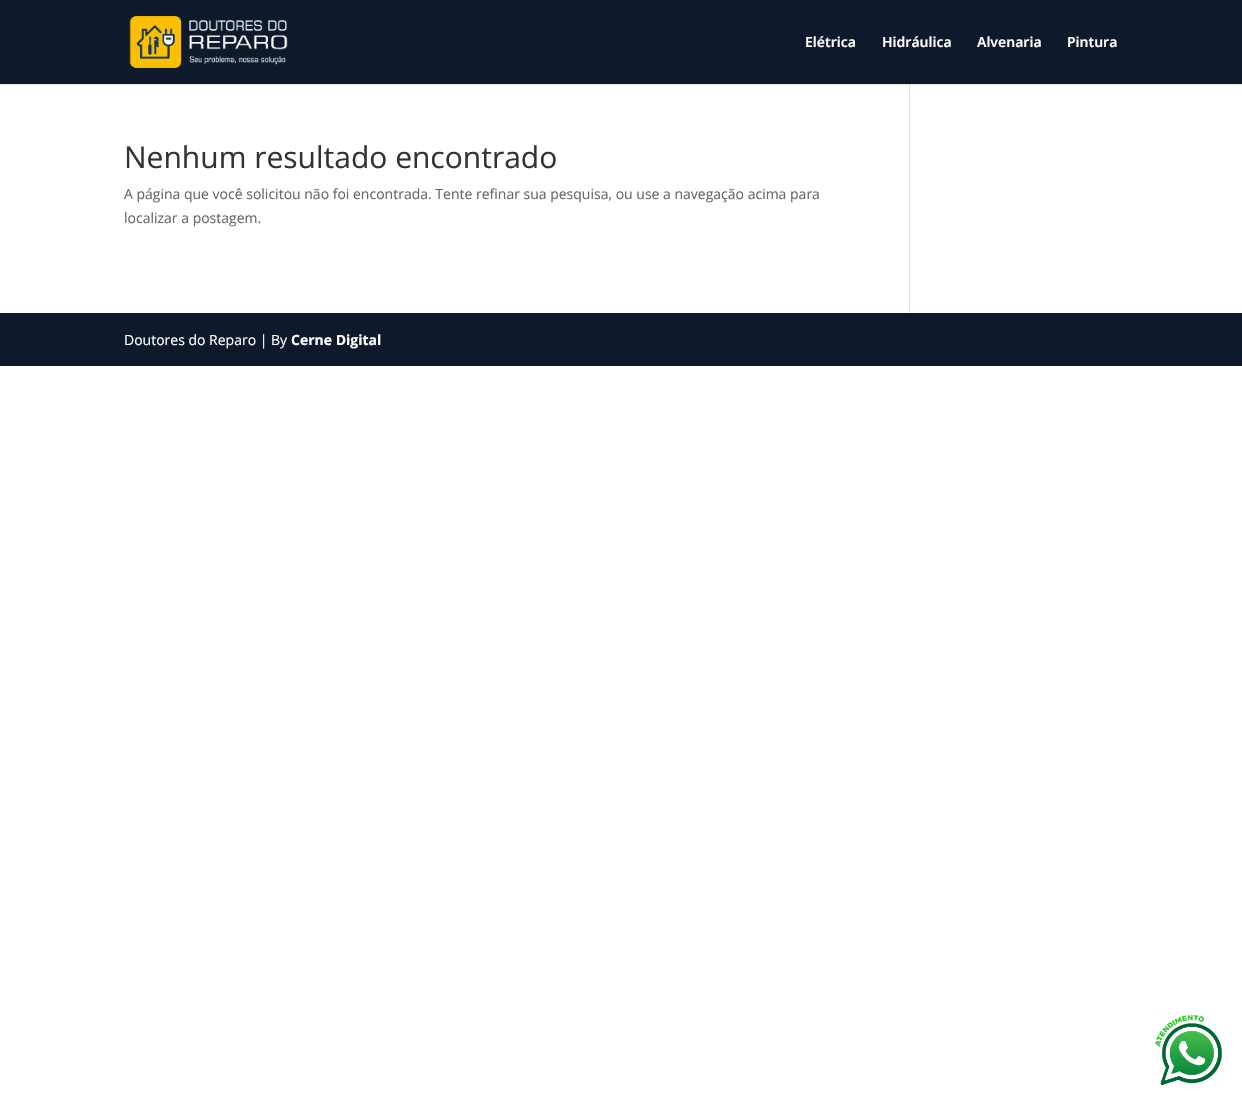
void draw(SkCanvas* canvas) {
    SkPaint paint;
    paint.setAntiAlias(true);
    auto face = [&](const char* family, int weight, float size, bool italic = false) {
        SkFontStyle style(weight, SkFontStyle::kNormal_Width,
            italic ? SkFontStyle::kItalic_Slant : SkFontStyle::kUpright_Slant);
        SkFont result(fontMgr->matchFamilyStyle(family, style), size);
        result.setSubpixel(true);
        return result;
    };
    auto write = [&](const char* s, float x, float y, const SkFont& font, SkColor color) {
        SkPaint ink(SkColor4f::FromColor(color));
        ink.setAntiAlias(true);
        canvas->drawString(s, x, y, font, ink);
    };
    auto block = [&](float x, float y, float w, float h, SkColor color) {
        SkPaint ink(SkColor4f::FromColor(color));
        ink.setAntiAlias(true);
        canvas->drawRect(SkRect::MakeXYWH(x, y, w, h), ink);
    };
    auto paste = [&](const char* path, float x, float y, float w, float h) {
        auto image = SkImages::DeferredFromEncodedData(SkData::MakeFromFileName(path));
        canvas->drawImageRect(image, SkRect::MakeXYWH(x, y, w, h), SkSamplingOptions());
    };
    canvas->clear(SK_ColorWHITE);
    block(0, 84, 1242, 1, SkColorSetRGB(230, 230, 230));
    block(0, 0, 1242, 84, SkColorSetRGB(14, 26, 43));
    paste("pic1.png", 129, 16, 159, 52);
    auto kFont1 = face("Noto Sans", 600, 14);
    write("Elétrica", 805, 47, kFont1, SK_ColorWHITE);
    write("Hidráulica", 882, 47, kFont1, SK_ColorWHITE);
    write("Alvenaria", 977, 47, kFont1, SK_ColorWHITE);
    write("Pintura", 1067, 47, kFont1, SK_ColorWHITE);
    auto kFont2 = face("Open Sans", 400, 30);
    write("Nenhum resultado encontrado", 124, 168, kFont2, SkColorSetRGB(51, 51, 51));
    auto kFont3 = face("Open Sans", 400, 14);
    write("A página que você solicitou não foi encontrada. Tente refinar sua pesquisa, ou use a navegação acima para", 124, 199, kFont3, SkColorSetRGB(102, 102, 102));
    write("localizar a postagem.", 124, 223, kFont3, SkColorSetRGB(102, 102, 102));
    block(909, 84, 1, 229, SkColorSetRGB(226, 226, 226));
    block(909, 84, 1, 1, SkColorSetRGB(203, 203, 203));
    block(0, 313, 1242, 53, SkColorSetRGB(14, 26, 43));
    write("Doutores do Reparo | By", 124, 345, kFont3, SK_ColorWHITE);
    auto kFont4 = face("Open Sans", 700, 14);
    write("Cerne Digital", 291, 345, kFont4, SK_ColorWHITE);
    paste("pic2.png", 1155, 1015, 67, 70);
}
